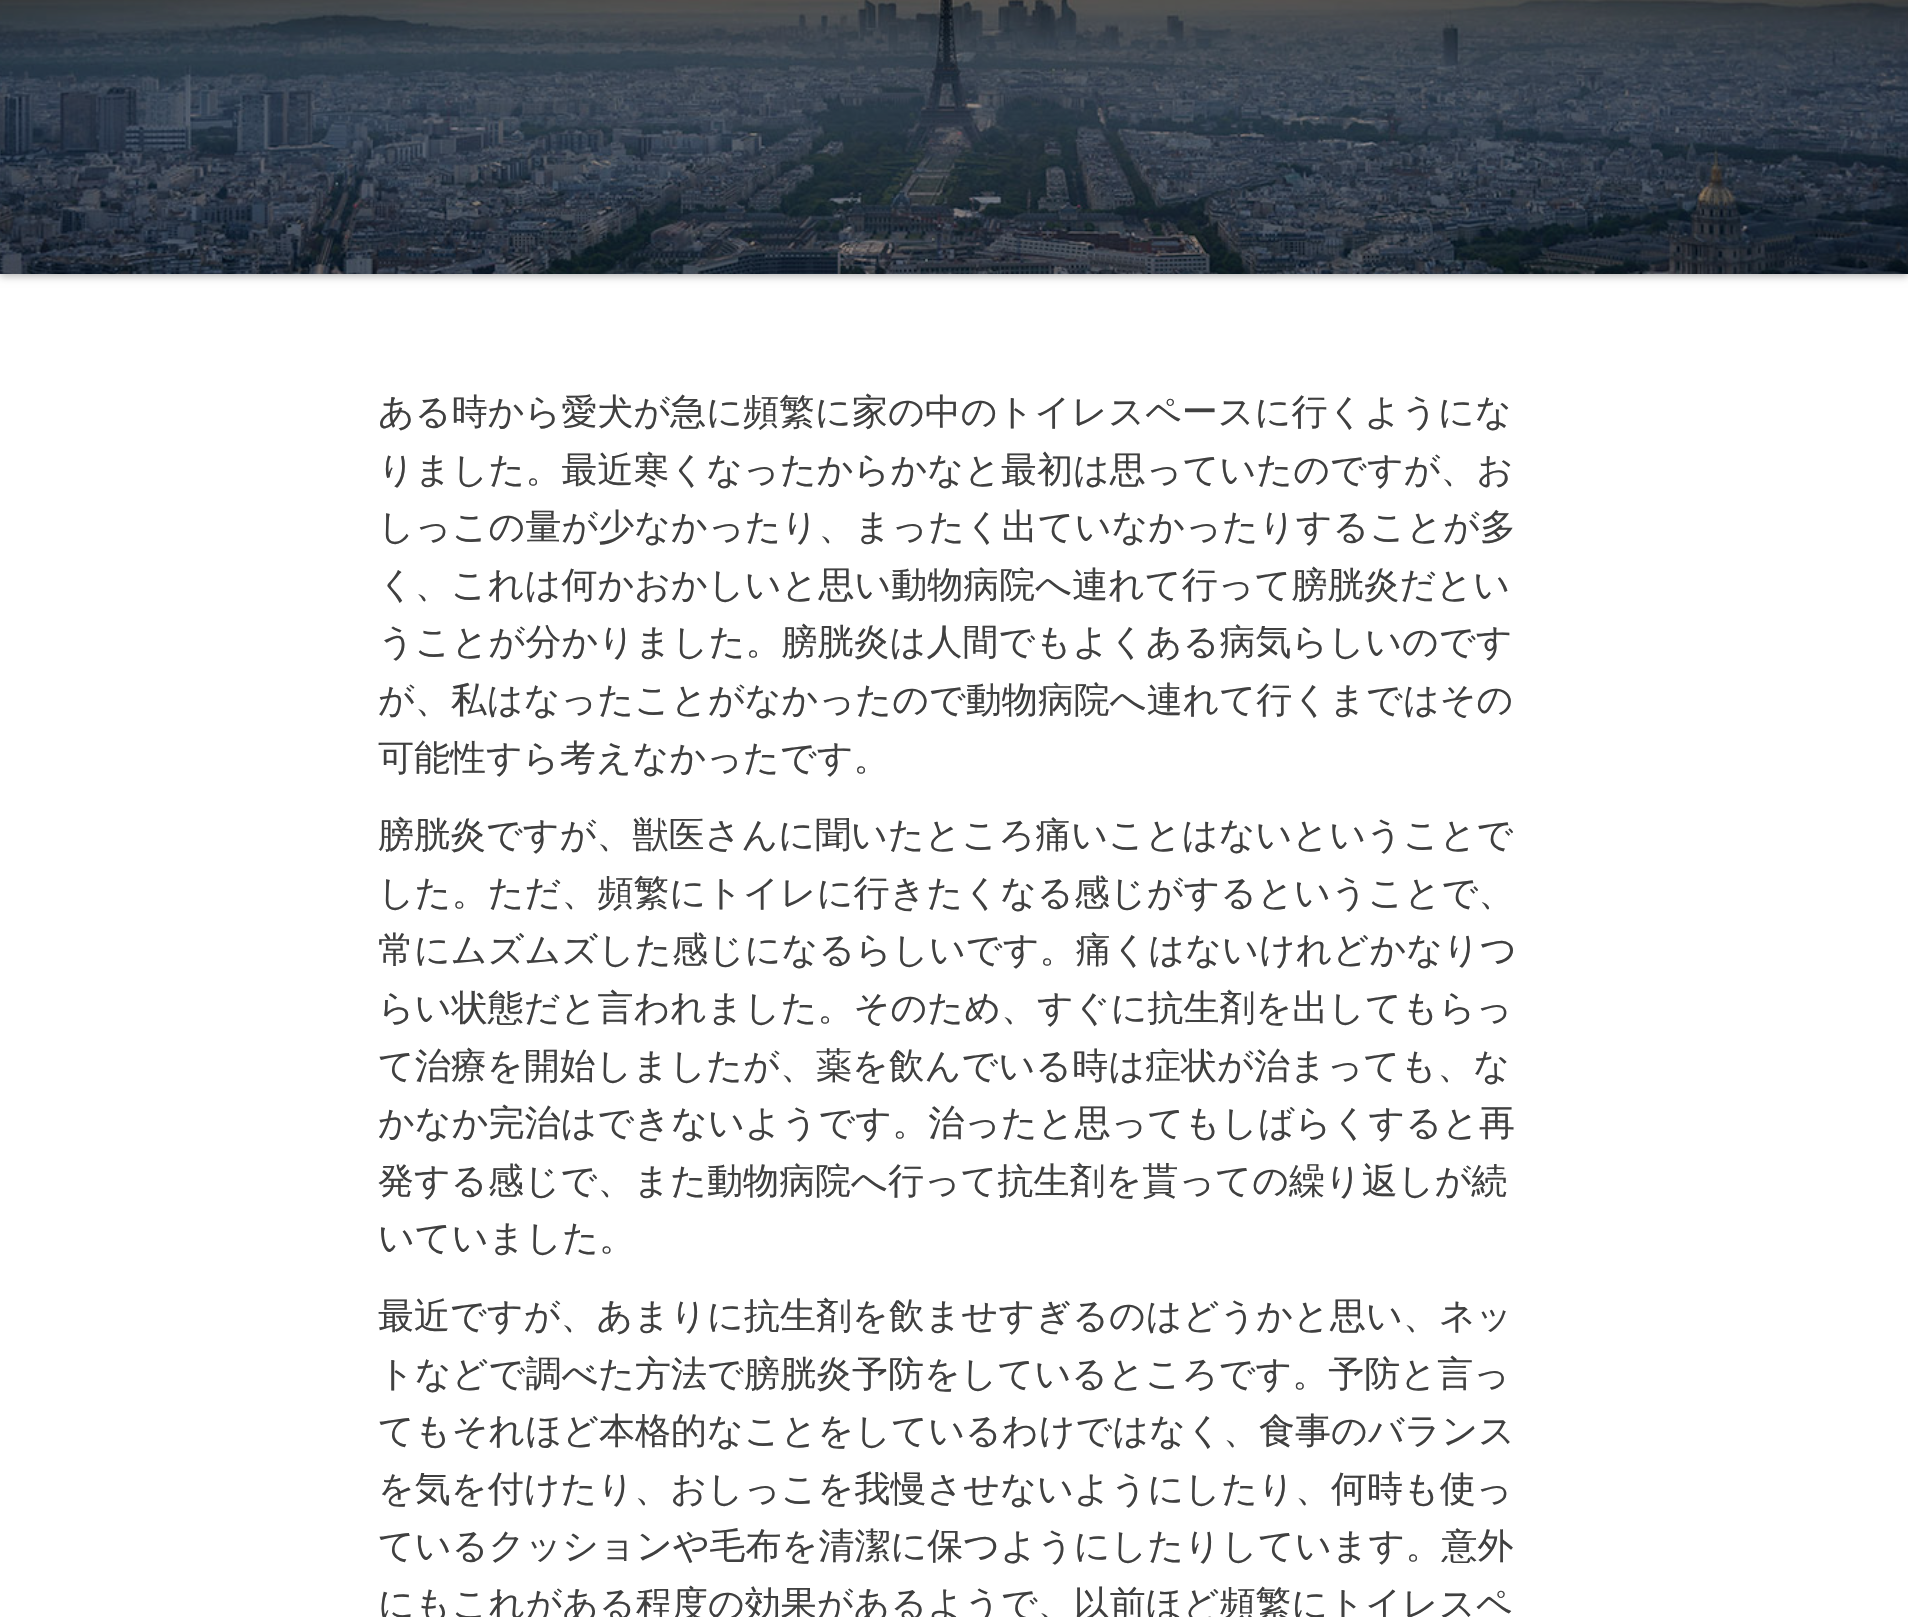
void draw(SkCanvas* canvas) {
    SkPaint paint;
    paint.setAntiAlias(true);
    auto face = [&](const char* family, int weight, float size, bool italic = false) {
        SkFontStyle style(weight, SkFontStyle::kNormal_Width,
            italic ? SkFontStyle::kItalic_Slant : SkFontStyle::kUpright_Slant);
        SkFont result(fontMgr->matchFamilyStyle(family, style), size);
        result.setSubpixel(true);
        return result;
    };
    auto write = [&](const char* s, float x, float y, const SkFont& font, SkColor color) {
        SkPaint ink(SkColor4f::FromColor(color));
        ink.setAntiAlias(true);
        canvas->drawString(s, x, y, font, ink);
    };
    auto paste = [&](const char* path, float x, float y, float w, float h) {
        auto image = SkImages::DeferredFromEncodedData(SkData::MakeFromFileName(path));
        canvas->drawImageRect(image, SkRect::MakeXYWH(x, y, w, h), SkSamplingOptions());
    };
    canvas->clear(SK_ColorWHITE);
    paint.setColor(SkColorSetARGB(77, 0, 0, 0));
    paint.setMaskFilter(SkMaskFilter::MakeBlur(kNormal_SkBlurStyle, 4));
    canvas->drawRect(SkRect::MakeXYWH(0, -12, 1908, 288), paint);
    paint.setMaskFilter(nullptr);
    paste("pic1.png", 0, 0, 1908, 274);
    auto kFont1 = face("WenQuanYi Zen Hei", 500, 36);
    write("ある時から愛犬が急に頻繁に家の中のトイレスペースに行くようにな", 378, 424, kFont1, SkColorSetRGB(64, 64, 64));
    write("りました。最近寒くなったからかなと最初は思っていたのですが、お", 378, 482, kFont1, SkColorSetRGB(64, 64, 64));
    write("しっこの量が少なかったり、まったく出ていなかったりすることが多", 378, 539, kFont1, SkColorSetRGB(64, 64, 64));
    write("く、これは何かおかしいと思い動物病院へ連れて行って膀胱炎だとい", 378, 597, kFont1, SkColorSetRGB(64, 64, 64));
    write("うことが分かりました。膀胱炎は人間でもよくある病気らしいのです", 378, 654, kFont1, SkColorSetRGB(64, 64, 64));
    write("が、私はなったことがなかったので動物病院へ連れて行くまではその", 378, 712, kFont1, SkColorSetRGB(64, 64, 64));
    write("可能性すら考えなかったです。", 378, 770, kFont1, SkColorSetRGB(64, 64, 64));
    write("膀胱炎ですが、獣医さんに聞いたところ痛いことはないということで", 378, 847, kFont1, SkColorSetRGB(64, 64, 64));
    write("した。ただ、頻繁にトイレに行きたくなる感じがするということで、", 378, 905, kFont1, SkColorSetRGB(64, 64, 64));
    write("常にムズムズした感じになるらしいです。痛くはないけれどかなりつ", 378, 962, kFont1, SkColorSetRGB(64, 64, 64));
    write("らい状態だと言われました。そのため、すぐに抗生剤を出してもらっ", 378, 1020, kFont1, SkColorSetRGB(64, 64, 64));
    write("て治療を開始しましたが、薬を飲んでいる時は症状が治まっても、な", 378, 1078, kFont1, SkColorSetRGB(64, 64, 64));
    write("かなか完治はできないようです。治ったと思ってもしばらくすると再", 378, 1135, kFont1, SkColorSetRGB(64, 64, 64));
    write("発する感じで、また動物病院へ行って抗生剤を貰っての繰り返しが続", 378, 1193, kFont1, SkColorSetRGB(64, 64, 64));
    write("いていました。", 378, 1250, kFont1, SkColorSetRGB(64, 64, 64));
    write("最近ですが、あまりに抗生剤を飲ませすぎるのはどうかと思い、ネッ", 378, 1328, kFont1, SkColorSetRGB(64, 64, 64));
    write("トなどで調べた方法で膀胱炎予防をしているところです。予防と言っ", 378, 1386, kFont1, SkColorSetRGB(64, 64, 64));
    write("てもそれほど本格的なことをしているわけではなく、食事のバランス", 378, 1443, kFont1, SkColorSetRGB(64, 64, 64));
    write("を気を付けたり、おしっこを我慢させないようにしたり、何時も使っ", 378, 1501, kFont1, SkColorSetRGB(64, 64, 64));
    write("ているクッションや毛布を清潔に保つようにしたりしています。意外", 378, 1558, kFont1, SkColorSetRGB(64, 64, 64));
    write("にもこれがある程度の効果があるようで、以前ほど頻繁にトイレスペ", 378, 1616, kFont1, SkColorSetRGB(64, 64, 64));
}
